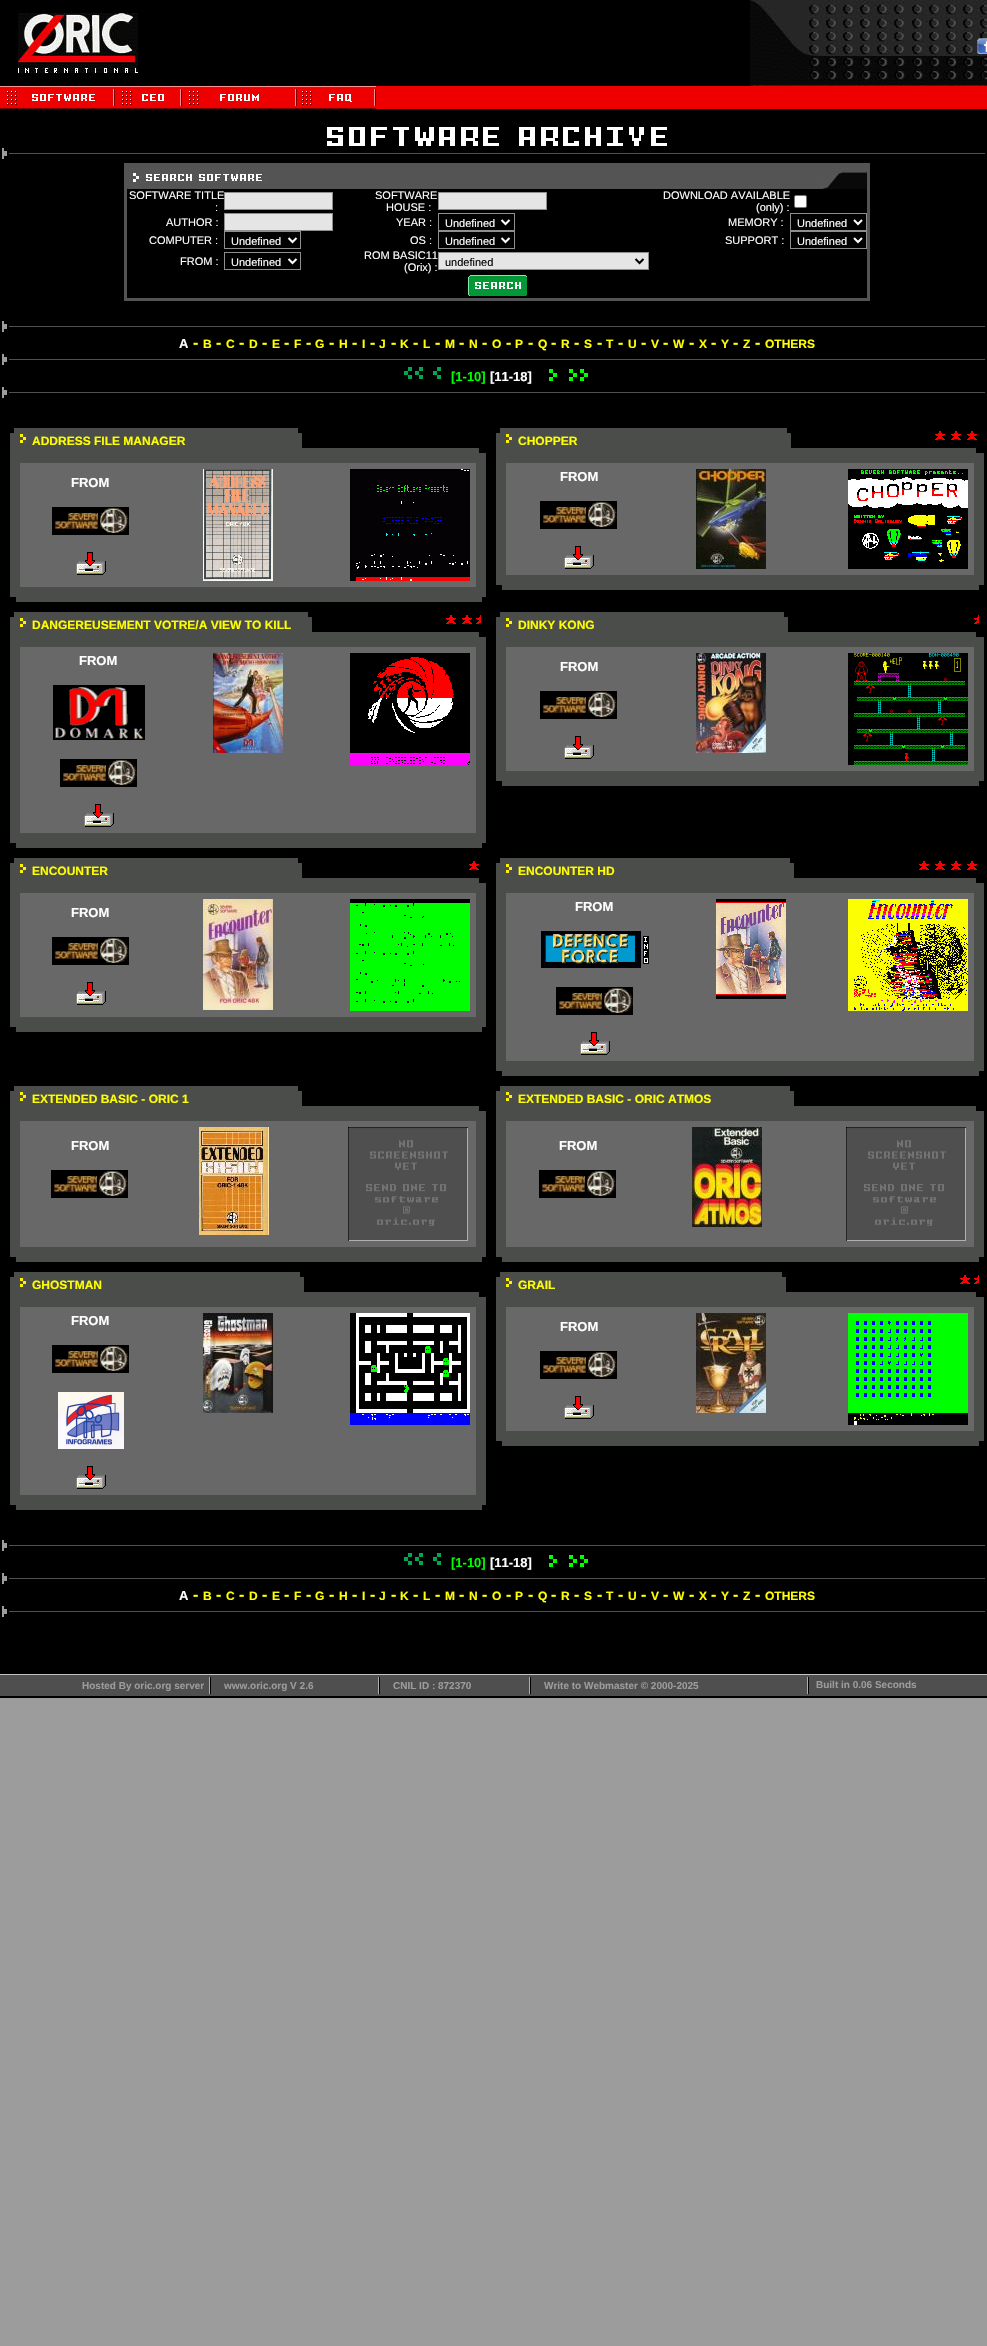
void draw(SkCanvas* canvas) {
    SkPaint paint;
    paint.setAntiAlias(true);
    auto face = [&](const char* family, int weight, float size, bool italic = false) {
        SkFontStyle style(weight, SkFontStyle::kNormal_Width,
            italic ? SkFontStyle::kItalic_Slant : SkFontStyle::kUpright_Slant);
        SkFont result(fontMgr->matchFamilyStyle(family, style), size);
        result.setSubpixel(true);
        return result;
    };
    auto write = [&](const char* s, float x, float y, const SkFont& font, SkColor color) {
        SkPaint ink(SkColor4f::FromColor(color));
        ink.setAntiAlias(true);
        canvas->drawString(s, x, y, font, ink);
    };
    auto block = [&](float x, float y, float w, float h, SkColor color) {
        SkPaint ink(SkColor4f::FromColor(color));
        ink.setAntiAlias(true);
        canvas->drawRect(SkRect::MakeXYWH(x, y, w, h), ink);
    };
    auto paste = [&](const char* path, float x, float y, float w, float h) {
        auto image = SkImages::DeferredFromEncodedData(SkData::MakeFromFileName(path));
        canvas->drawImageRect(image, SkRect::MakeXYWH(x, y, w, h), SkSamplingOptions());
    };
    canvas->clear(SkColorSetRGB(156, 156, 156));
    block(0, 0, 987, 1698, SK_ColorBLACK);
    paste("pic1.png", 18, 13, 120, 60);
    paste("pic2.png", 750, 0, 237, 86);
    paste("pic3.png", 977, 38, 10, 16);
    block(376, 86, 611, 23, SkColorSetRGB(239, 0, 0));
    paste("pic4.png", 0, 86, 115, 23);
    paste("pic5.png", 115, 86, 67, 23);
    paste("pic6.png", 182, 86, 115, 23);
    paste("pic7.png", 297, 86, 79, 23);
    paste("pic8.png", 327, 127, 340, 19);
    paste("pic9.png", 2, 148, 5, 11);
    block(9, 153, 976, 1, SkColorSetRGB(81, 80, 80));
    block(124, 163, 746, 3, SkColorSetRGB(84, 84, 84));
    block(867, 163, 3, 138, SkColorSetRGB(84, 84, 84));
    block(124, 298, 746, 3, SkColorSetRGB(84, 84, 84));
    block(124, 163, 3, 138, SkColorSetRGB(84, 84, 84));
    paste("pic10.png", 127, 166, 740, 23);
    auto kFont1 = face("Liberation Sans", 400, 11);
    write("SOFTWARE TITLE", 129, 199, kFont1, SK_ColorWHITE);
    write(":", 215, 211, kFont1, SK_ColorWHITE);
    paint.setColor(SkColorSetRGB(229, 229, 229));
    canvas->drawRect(SkRect::MakeXYWH(224.5f, 192.5f, 108, 17), paint);
    paint.setStyle(SkPaint::kStroke_Style);
    paint.setStrokeWidth(1);
    paint.setColor(SkColorSetRGB(142, 142, 142));
    canvas->drawRect(SkRect::MakeXYWH(224.5f, 192.5f, 108, 17), paint);
    write("SOFTWARE", 375, 199, kFont1, SK_ColorWHITE);
    write("HOUSE :", 386, 211, kFont1, SK_ColorWHITE);
    paint.setStyle(SkPaint::kFill_Style);
    paint.setColor(SkColorSetRGB(229, 229, 229));
    canvas->drawRect(SkRect::MakeXYWH(438.5f, 192.5f, 108, 17), paint);
    paint.setStyle(SkPaint::kStroke_Style);
    paint.setColor(SkColorSetRGB(142, 142, 142));
    canvas->drawRect(SkRect::MakeXYWH(438.5f, 192.5f, 108, 17), paint);
    write("DOWNLOAD AVAILABLE", 663, 199, kFont1, SK_ColorWHITE);
    write("(only) :", 756, 211, kFont1, SK_ColorWHITE);
    paint.setStyle(SkPaint::kFill_Style);
    paint.setColor(SK_ColorWHITE);
    canvas->drawRoundRect(SkRect::MakeXYWH(794.5f, 195.5f, 12, 12), 1.5f, 1.5f, paint);
    paint.setStyle(SkPaint::kStroke_Style);
    paint.setColor(SkColorSetRGB(118, 118, 118));
    canvas->drawRoundRect(SkRect::MakeXYWH(794.5f, 195.5f, 12, 12), 1.5f, 1.5f, paint);
    write("AUTHOR :", 166, 226, kFont1, SK_ColorWHITE);
    paint.setStyle(SkPaint::kFill_Style);
    paint.setColor(SkColorSetRGB(229, 229, 229));
    canvas->drawRect(SkRect::MakeXYWH(224.5f, 213.5f, 108, 17), paint);
    paint.setStyle(SkPaint::kStroke_Style);
    paint.setColor(SkColorSetRGB(142, 142, 142));
    canvas->drawRect(SkRect::MakeXYWH(224.5f, 213.5f, 108, 17), paint);
    write("YEAR :", 396, 226, kFont1, SK_ColorWHITE);
    canvas->drawRect(SkRect::MakeXYWH(438.5f, 213.5f, 76, 17), paint);
    paint.setStrokeWidth(2);
    paint.setColor(SK_ColorWHITE);
    canvas->drawPath(SkPathBuilder().moveTo(501.5f, 220).lineTo(505.5f, 224).lineTo(509.5f, 220).detach(), paint);
    write("Undefined", 445, 227, kFont1, SK_ColorWHITE);
    write("MEMORY :", 728, 226, kFont1, SK_ColorWHITE);
    paint.setStrokeWidth(1);
    paint.setColor(SkColorSetRGB(142, 142, 142));
    canvas->drawRect(SkRect::MakeXYWH(790.5f, 213.5f, 76, 17), paint);
    paint.setStrokeWidth(2);
    paint.setColor(SK_ColorWHITE);
    canvas->drawPath(SkPathBuilder().moveTo(854, 220).lineTo(858, 224).lineTo(862, 220).detach(), paint);
    write("Undefined", 797, 227, kFont1, SK_ColorWHITE);
    write("COMPUTER :", 149, 244, kFont1, SK_ColorWHITE);
    paint.setStrokeWidth(1);
    paint.setColor(SkColorSetRGB(142, 142, 142));
    canvas->drawRect(SkRect::MakeXYWH(224.5f, 231.5f, 76, 17), paint);
    paint.setStrokeWidth(2);
    paint.setColor(SK_ColorWHITE);
    canvas->drawPath(SkPathBuilder().moveTo(288.5f, 238).lineTo(292.5f, 242).lineTo(296.5f, 238).detach(), paint);
    write("Undefined", 231, 245, kFont1, SK_ColorWHITE);
    write("OS :", 410, 244, kFont1, SK_ColorWHITE);
    paint.setStrokeWidth(1);
    paint.setColor(SkColorSetRGB(142, 142, 142));
    canvas->drawRect(SkRect::MakeXYWH(438.5f, 231.5f, 76, 17), paint);
    paint.setStrokeWidth(2);
    paint.setColor(SK_ColorWHITE);
    canvas->drawPath(SkPathBuilder().moveTo(501.5f, 238).lineTo(505.5f, 242).lineTo(509.5f, 238).detach(), paint);
    write("Undefined", 445, 245, kFont1, SK_ColorWHITE);
    write("SUPPORT :", 725, 244, kFont1, SK_ColorWHITE);
    paint.setStrokeWidth(1);
    paint.setColor(SkColorSetRGB(142, 142, 142));
    canvas->drawRect(SkRect::MakeXYWH(790.5f, 231.5f, 76, 17), paint);
    paint.setStrokeWidth(2);
    paint.setColor(SK_ColorWHITE);
    canvas->drawPath(SkPathBuilder().moveTo(854, 238).lineTo(858, 242).lineTo(862, 238).detach(), paint);
    write("Undefined", 797, 245, kFont1, SK_ColorWHITE);
    write("FROM :", 180, 265, kFont1, SK_ColorWHITE);
    paint.setStrokeWidth(1);
    paint.setColor(SkColorSetRGB(142, 142, 142));
    canvas->drawRect(SkRect::MakeXYWH(224.5f, 252.5f, 76, 17), paint);
    paint.setStrokeWidth(2);
    paint.setColor(SK_ColorWHITE);
    canvas->drawPath(SkPathBuilder().moveTo(288.5f, 259).lineTo(292.5f, 263).lineTo(296.5f, 259).detach(), paint);
    write("Undefined", 231, 266, kFont1, SK_ColorWHITE);
    write("ROM BASIC11", 364, 259, kFont1, SK_ColorWHITE);
    write("(Orix) :", 404, 271, kFont1, SK_ColorWHITE);
    paint.setStyle(SkPaint::kFill_Style);
    paint.setColor(SkColorSetRGB(229, 229, 229));
    canvas->drawRect(SkRect::MakeXYWH(438.5f, 252.5f, 210, 17), paint);
    paint.setStyle(SkPaint::kStroke_Style);
    paint.setStrokeWidth(1);
    paint.setColor(SkColorSetRGB(142, 142, 142));
    canvas->drawRect(SkRect::MakeXYWH(438.5f, 252.5f, 210, 17), paint);
    paint.setStrokeWidth(2);
    paint.setColor(SK_ColorBLACK);
    canvas->drawPath(SkPathBuilder().moveTo(635.5f, 259).lineTo(639.5f, 263).lineTo(643.5f, 259).detach(), paint);
    write("undefined", 445, 266, kFont1, SK_ColorBLACK);
    paste("pic11.png", 468, 275, 59, 21);
    paste("pic9.png", 2, 321, 5, 11);
    block(9, 326, 976, 1, SkColorSetRGB(81, 80, 80));
    auto kFont2 = face("Liberation Sans", 700, 13);
    write("A", 179, 348, kFont2, SK_ColorWHITE);
    auto kFont3 = face("Liberation Sans", 700, 16);
    write("-", 193, 348, kFont3, SkColorSetRGB(255, 255, 0));
    auto kFont4 = face("Liberation Sans", 700, 12);
    write("B", 203, 348, kFont4, SkColorSetRGB(255, 255, 0));
    write("-", 216, 348, kFont3, SkColorSetRGB(255, 255, 0));
    write("C", 226, 348, kFont4, SkColorSetRGB(255, 255, 0));
    write("-", 239, 348, kFont3, SkColorSetRGB(255, 255, 0));
    write("D", 249, 348, kFont4, SkColorSetRGB(255, 255, 0));
    write("-", 262, 348, kFont3, SkColorSetRGB(255, 255, 0));
    write("E", 272, 348, kFont4, SkColorSetRGB(255, 255, 0));
    write("-", 284, 348, kFont3, SkColorSetRGB(255, 255, 0));
    write("F", 294, 348, kFont4, SkColorSetRGB(255, 255, 0));
    write("-", 306, 348, kFont3, SkColorSetRGB(255, 255, 0));
    write("G", 315, 348, kFont4, SkColorSetRGB(255, 255, 0));
    write("-", 329, 348, kFont3, SkColorSetRGB(255, 255, 0));
    write("H", 339, 348, kFont4, SkColorSetRGB(255, 255, 0));
    write("-", 352, 348, kFont3, SkColorSetRGB(255, 255, 0));
    write("I", 362, 348, kFont4, SkColorSetRGB(255, 255, 0));
    write("-", 370, 348, kFont3, SkColorSetRGB(255, 255, 0));
    write("J", 379, 348, kFont4, SkColorSetRGB(255, 255, 0));
    write("-", 391, 348, kFont3, SkColorSetRGB(255, 255, 0));
    write("K", 400, 348, kFont4, SkColorSetRGB(255, 255, 0));
    write("-", 413, 348, kFont3, SkColorSetRGB(255, 255, 0));
    write("L", 423, 348, kFont4, SkColorSetRGB(255, 255, 0));
    write("-", 435, 348, kFont3, SkColorSetRGB(255, 255, 0));
    write("M", 445, 348, kFont4, SkColorSetRGB(255, 255, 0));
    write("-", 459, 348, kFont3, SkColorSetRGB(255, 255, 0));
    write("N", 469, 348, kFont4, SkColorSetRGB(255, 255, 0));
    write("-", 482, 348, kFont3, SkColorSetRGB(255, 255, 0));
    write("O", 492, 348, kFont4, SkColorSetRGB(255, 255, 0));
    write("-", 506, 348, kFont3, SkColorSetRGB(255, 255, 0));
    write("P", 515, 348, kFont4, SkColorSetRGB(255, 255, 0));
    write("-", 528, 348, kFont3, SkColorSetRGB(255, 255, 0));
    write("Q", 538, 348, kFont4, SkColorSetRGB(255, 255, 0));
    write("-", 551, 348, kFont3, SkColorSetRGB(255, 255, 0));
    write("R", 561, 348, kFont4, SkColorSetRGB(255, 255, 0));
    write("-", 574, 348, kFont3, SkColorSetRGB(255, 255, 0));
    write("S", 584, 348, kFont4, SkColorSetRGB(255, 255, 0));
    write("-", 597, 348, kFont3, SkColorSetRGB(255, 255, 0));
    write("T", 606, 348, kFont4, SkColorSetRGB(255, 255, 0));
    write("-", 618, 348, kFont3, SkColorSetRGB(255, 255, 0));
    write("U", 628, 348, kFont4, SkColorSetRGB(255, 255, 0));
    write("-", 641, 348, kFont3, SkColorSetRGB(255, 255, 0));
    write("V", 651, 348, kFont4, SkColorSetRGB(255, 255, 0));
    write("-", 663, 348, kFont3, SkColorSetRGB(255, 255, 0));
    write("W", 673, 348, kFont4, SkColorSetRGB(255, 255, 0));
    write("-", 689, 348, kFont3, SkColorSetRGB(255, 255, 0));
    write("X", 699, 348, kFont4, SkColorSetRGB(255, 255, 0));
    write("-", 711, 348, kFont3, SkColorSetRGB(255, 255, 0));
    write("Y", 721, 348, kFont4, SkColorSetRGB(255, 255, 0));
    write("-", 733, 348, kFont3, SkColorSetRGB(255, 255, 0));
    write("Z", 743, 348, kFont4, SkColorSetRGB(255, 255, 0));
    write("-", 755, 348, kFont3, SkColorSetRGB(255, 255, 0));
    write("OTHERS", 765, 348, kFont4, SkColorSetRGB(255, 255, 0));
    paste("pic9.png", 2, 354, 5, 11);
    block(9, 359, 976, 1, SkColorSetRGB(81, 80, 80));
    paste("pic12.png", 404, 367, 8, 12);
    paste("pic12.png", 415, 367, 8, 12);
    paste("pic12.png", 433, 367, 8, 12);
    write("[1-10]", 451, 381, kFont2, SkColorSetRGB(0, 255, 0));
    write("[11-18]", 490, 381, kFont2, SK_ColorWHITE);
    paste("pic13.png", 549, 369, 8, 12);
    paste("pic13.png", 569, 369, 8, 12);
    paste("pic13.png", 580, 369, 8, 12);
    paste("pic9.png", 2, 387, 5, 11);
    block(9, 392, 976, 1, SkColorSetRGB(81, 80, 80));
    block(10, 433, 4, 15, SkColorSetRGB(74, 77, 74));
    block(14, 428, 284, 20, SkColorSetRGB(74, 77, 74));
    paste("pic14.png", 20, 434, 6, 9);
    block(298, 433, 4, 15, SkColorSetRGB(74, 77, 74));
    write("ADDRESS FILE MANAGER", 32, 445, kFont4, SkColorSetRGB(255, 255, 0));
    block(10, 448, 469, 5, SkColorSetRGB(74, 77, 74));
    block(10, 453, 476, 144, SkColorSetRGB(74, 77, 74));
    block(20, 463, 456, 124, SkColorSetRGB(104, 104, 104));
    write("FROM", 71, 487, kFont2, SK_ColorWHITE);
    paste("pic15.png", 52, 507, 77, 28);
    paste("pic16.png", 76, 552, 30, 23);
    paste("pic17.png", 203, 469, 70, 112);
    paste("pic18.png", 350, 469, 120, 112);
    block(16, 597, 466, 5, SkColorSetRGB(74, 77, 74));
    block(496, 433, 4, 15, SkColorSetRGB(74, 77, 74));
    block(500, 428, 287, 20, SkColorSetRGB(74, 77, 74));
    paste("pic14.png", 506, 434, 6, 9);
    block(787, 433, 4, 15, SkColorSetRGB(74, 77, 74));
    paste("pic19.png", 935, 431, 10, 9);
    paste("pic19.png", 951, 431, 10, 9);
    paste("pic19.png", 967, 431, 10, 9);
    write("CHOPPER", 518, 445, kFont4, SkColorSetRGB(255, 255, 0));
    block(496, 448, 480, 5, SkColorSetRGB(74, 77, 74));
    block(496, 453, 488, 132, SkColorSetRGB(74, 77, 74));
    block(506, 463, 468, 112, SkColorSetRGB(104, 104, 104));
    write("FROM", 560, 481, kFont2, SK_ColorWHITE);
    paste("pic15.png", 540, 501, 77, 28);
    paste("pic16.png", 564, 546, 30, 23);
    paste("pic20.png", 696, 469, 70, 100);
    paste("pic21.png", 848, 469, 120, 100);
    block(502, 585, 477, 5, SkColorSetRGB(74, 77, 74));
    block(10, 617, 4, 15, SkColorSetRGB(74, 77, 74));
    block(14, 612, 294, 20, SkColorSetRGB(74, 77, 74));
    paste("pic14.png", 20, 618, 6, 9);
    block(308, 617, 4, 15, SkColorSetRGB(74, 77, 74));
    paste("pic19.png", 446, 615, 10, 9);
    paste("pic19.png", 462, 615, 10, 9);
    paste("pic22.png", 476, 615, 5, 9);
    write("DANGEREUSEMENT VOTRE/A VIEW TO KILL", 32, 629, kFont4, SkColorSetRGB(255, 255, 0));
    block(10, 632, 469, 5, SkColorSetRGB(74, 77, 74));
    block(10, 637, 476, 206, SkColorSetRGB(74, 77, 74));
    block(20, 647, 456, 186, SkColorSetRGB(104, 104, 104));
    write("FROM", 79, 665, kFont2, SK_ColorWHITE);
    paste("pic23.png", 53, 685, 92, 55);
    paste("pic15.png", 60, 759, 77, 28);
    paste("pic16.png", 84, 804, 30, 23);
    paste("pic24.png", 213, 653, 70, 100);
    paste("pic25.png", 350, 653, 120, 112);
    block(16, 843, 466, 5, SkColorSetRGB(74, 77, 74));
    block(496, 617, 4, 15, SkColorSetRGB(74, 77, 74));
    block(500, 612, 284, 20, SkColorSetRGB(74, 77, 74));
    paste("pic14.png", 506, 618, 6, 9);
    block(784, 617, 4, 15, SkColorSetRGB(74, 77, 74));
    paste("pic22.png", 974, 615, 5, 9);
    write("DINKY KONG", 518, 629, kFont4, SkColorSetRGB(255, 255, 0));
    block(496, 632, 480, 5, SkColorSetRGB(74, 77, 74));
    block(496, 637, 488, 144, SkColorSetRGB(74, 77, 74));
    block(506, 647, 468, 124, SkColorSetRGB(104, 104, 104));
    write("FROM", 560, 671, kFont2, SK_ColorWHITE);
    paste("pic15.png", 540, 691, 77, 28);
    paste("pic16.png", 564, 736, 30, 23);
    paste("pic26.png", 696, 653, 70, 100);
    paste("pic27.png", 848, 653, 120, 112);
    block(502, 781, 477, 5, SkColorSetRGB(74, 77, 74));
    block(10, 863, 4, 15, SkColorSetRGB(74, 77, 74));
    block(14, 858, 284, 20, SkColorSetRGB(74, 77, 74));
    paste("pic14.png", 20, 864, 6, 9);
    block(298, 863, 4, 15, SkColorSetRGB(74, 77, 74));
    paste("pic19.png", 469, 861, 10, 9);
    write("ENCOUNTER", 32, 875, kFont4, SkColorSetRGB(255, 255, 0));
    block(10, 878, 469, 5, SkColorSetRGB(74, 77, 74));
    block(10, 883, 476, 144, SkColorSetRGB(74, 77, 74));
    block(20, 893, 456, 124, SkColorSetRGB(104, 104, 104));
    write("FROM", 71, 917, kFont2, SK_ColorWHITE);
    paste("pic15.png", 52, 937, 77, 28);
    paste("pic16.png", 76, 982, 30, 23);
    paste("pic28.png", 203, 899, 70, 111);
    paste("pic29.png", 350, 899, 120, 112);
    block(16, 1027, 466, 5, SkColorSetRGB(74, 77, 74));
    block(496, 863, 4, 15, SkColorSetRGB(74, 77, 74));
    block(500, 858, 290, 20, SkColorSetRGB(74, 77, 74));
    paste("pic14.png", 506, 864, 6, 9);
    block(790, 863, 4, 15, SkColorSetRGB(74, 77, 74));
    paste("pic19.png", 919, 861, 10, 9);
    paste("pic19.png", 935, 861, 10, 9);
    paste("pic19.png", 951, 861, 10, 9);
    paste("pic19.png", 967, 861, 10, 9);
    write("ENCOUNTER HD", 518, 875, kFont4, SkColorSetRGB(255, 255, 0));
    block(496, 878, 480, 5, SkColorSetRGB(74, 77, 74));
    block(496, 883, 488, 188, SkColorSetRGB(74, 77, 74));
    block(506, 893, 468, 168, SkColorSetRGB(104, 104, 104));
    write("FROM", 575, 911, kFont2, SK_ColorWHITE);
    paste("pic30.png", 541, 931, 100, 37);
    paste("pic31.png", 643, 936, 6, 28);
    paste("pic15.png", 556, 987, 77, 28);
    paste("pic16.png", 580, 1032, 30, 23);
    paste("pic32.png", 716, 899, 70, 100);
    paste("pic33.png", 848, 899, 120, 112);
    block(502, 1071, 477, 5, SkColorSetRGB(74, 77, 74));
    block(10, 1091, 4, 15, SkColorSetRGB(74, 77, 74));
    block(14, 1086, 284, 20, SkColorSetRGB(74, 77, 74));
    paste("pic14.png", 20, 1092, 6, 9);
    block(298, 1091, 4, 15, SkColorSetRGB(74, 77, 74));
    write("EXTENDED BASIC - ORIC 1", 32, 1103, kFont4, SkColorSetRGB(255, 255, 0));
    block(10, 1106, 469, 5, SkColorSetRGB(74, 77, 74));
    block(10, 1111, 476, 146, SkColorSetRGB(74, 77, 74));
    block(20, 1121, 456, 126, SkColorSetRGB(104, 104, 104));
    write("FROM", 71, 1150, kFont2, SK_ColorWHITE);
    paste("pic15.png", 51, 1170, 77, 28);
    paste("pic34.png", 199, 1127, 70, 108);
    paste("pic35.png", 348, 1127, 120, 114);
    block(16, 1257, 466, 5, SkColorSetRGB(74, 77, 74));
    block(496, 1091, 4, 15, SkColorSetRGB(74, 77, 74));
    block(500, 1086, 290, 20, SkColorSetRGB(74, 77, 74));
    paste("pic14.png", 506, 1092, 6, 9);
    block(790, 1091, 4, 15, SkColorSetRGB(74, 77, 74));
    write("EXTENDED BASIC - ORIC ATMOS", 518, 1103, kFont4, SkColorSetRGB(255, 255, 0));
    block(496, 1106, 480, 5, SkColorSetRGB(74, 77, 74));
    block(496, 1111, 488, 146, SkColorSetRGB(74, 77, 74));
    block(506, 1121, 468, 126, SkColorSetRGB(104, 104, 104));
    write("FROM", 559, 1150, kFont2, SK_ColorWHITE);
    paste("pic15.png", 539, 1170, 77, 28);
    paste("pic36.png", 692, 1127, 70, 100);
    paste("pic35.png", 846, 1127, 120, 114);
    block(502, 1257, 477, 5, SkColorSetRGB(74, 77, 74));
    block(10, 1277, 4, 15, SkColorSetRGB(74, 77, 74));
    block(14, 1272, 286, 20, SkColorSetRGB(74, 77, 74));
    paste("pic14.png", 20, 1278, 6, 9);
    block(300, 1277, 4, 15, SkColorSetRGB(74, 77, 74));
    write("GHOSTMAN", 32, 1289, kFont4, SkColorSetRGB(255, 255, 0));
    block(10, 1292, 469, 5, SkColorSetRGB(74, 77, 74));
    block(10, 1297, 476, 208, SkColorSetRGB(74, 77, 74));
    block(20, 1307, 456, 188, SkColorSetRGB(104, 104, 104));
    write("FROM", 71, 1325, kFont2, SK_ColorWHITE);
    paste("pic15.png", 52, 1345, 77, 28);
    paste("pic37.png", 58, 1392, 66, 57);
    paste("pic16.png", 76, 1466, 30, 23);
    paste("pic38.png", 203, 1313, 70, 100);
    paste("pic39.png", 350, 1313, 120, 112);
    block(16, 1505, 466, 5, SkColorSetRGB(74, 77, 74));
    block(496, 1277, 4, 15, SkColorSetRGB(74, 77, 74));
    block(500, 1272, 282, 20, SkColorSetRGB(74, 77, 74));
    paste("pic14.png", 506, 1278, 6, 9);
    block(782, 1277, 4, 15, SkColorSetRGB(74, 77, 74));
    paste("pic19.png", 960, 1275, 10, 9);
    paste("pic22.png", 974, 1275, 5, 9);
    write("GRAIL", 518, 1289, kFont4, SkColorSetRGB(255, 255, 0));
    block(496, 1292, 480, 5, SkColorSetRGB(74, 77, 74));
    block(496, 1297, 488, 144, SkColorSetRGB(74, 77, 74));
    block(506, 1307, 468, 124, SkColorSetRGB(104, 104, 104));
    write("FROM", 560, 1331, kFont2, SK_ColorWHITE);
    paste("pic15.png", 540, 1351, 77, 28);
    paste("pic16.png", 564, 1396, 30, 23);
    paste("pic40.png", 696, 1313, 70, 100);
    paste("pic41.png", 848, 1313, 120, 112);
    block(502, 1441, 477, 5, SkColorSetRGB(74, 77, 74));
    paste("pic9.png", 2, 1540, 5, 11);
    block(9, 1545, 976, 1, SkColorSetRGB(81, 80, 80));
    paste("pic12.png", 404, 1553, 8, 12);
    paste("pic12.png", 415, 1553, 8, 12);
    paste("pic12.png", 433, 1553, 8, 12);
    write("[1-10]", 451, 1567, kFont2, SkColorSetRGB(0, 255, 0));
    write("[11-18]", 490, 1567, kFont2, SK_ColorWHITE);
    paste("pic13.png", 549, 1555, 8, 12);
    paste("pic13.png", 569, 1555, 8, 12);
    paste("pic13.png", 580, 1555, 8, 12);
    paste("pic9.png", 2, 1573, 5, 11);
    block(9, 1578, 976, 1, SkColorSetRGB(81, 80, 80));
    write("A", 179, 1600, kFont2, SK_ColorWHITE);
    write("-", 193, 1600, kFont3, SkColorSetRGB(255, 255, 0));
    write("B", 203, 1600, kFont4, SkColorSetRGB(255, 255, 0));
    write("-", 216, 1600, kFont3, SkColorSetRGB(255, 255, 0));
    write("C", 226, 1600, kFont4, SkColorSetRGB(255, 255, 0));
    write("-", 239, 1600, kFont3, SkColorSetRGB(255, 255, 0));
    write("D", 249, 1600, kFont4, SkColorSetRGB(255, 255, 0));
    write("-", 262, 1600, kFont3, SkColorSetRGB(255, 255, 0));
    write("E", 272, 1600, kFont4, SkColorSetRGB(255, 255, 0));
    write("-", 284, 1600, kFont3, SkColorSetRGB(255, 255, 0));
    write("F", 294, 1600, kFont4, SkColorSetRGB(255, 255, 0));
    write("-", 306, 1600, kFont3, SkColorSetRGB(255, 255, 0));
    write("G", 315, 1600, kFont4, SkColorSetRGB(255, 255, 0));
    write("-", 329, 1600, kFont3, SkColorSetRGB(255, 255, 0));
    write("H", 339, 1600, kFont4, SkColorSetRGB(255, 255, 0));
    write("-", 352, 1600, kFont3, SkColorSetRGB(255, 255, 0));
    write("I", 362, 1600, kFont4, SkColorSetRGB(255, 255, 0));
    write("-", 370, 1600, kFont3, SkColorSetRGB(255, 255, 0));
    write("J", 379, 1600, kFont4, SkColorSetRGB(255, 255, 0));
    write("-", 391, 1600, kFont3, SkColorSetRGB(255, 255, 0));
    write("K", 400, 1600, kFont4, SkColorSetRGB(255, 255, 0));
    write("-", 413, 1600, kFont3, SkColorSetRGB(255, 255, 0));
    write("L", 423, 1600, kFont4, SkColorSetRGB(255, 255, 0));
    write("-", 435, 1600, kFont3, SkColorSetRGB(255, 255, 0));
    write("M", 445, 1600, kFont4, SkColorSetRGB(255, 255, 0));
    write("-", 459, 1600, kFont3, SkColorSetRGB(255, 255, 0));
    write("N", 469, 1600, kFont4, SkColorSetRGB(255, 255, 0));
    write("-", 482, 1600, kFont3, SkColorSetRGB(255, 255, 0));
    write("O", 492, 1600, kFont4, SkColorSetRGB(255, 255, 0));
    write("-", 506, 1600, kFont3, SkColorSetRGB(255, 255, 0));
    write("P", 515, 1600, kFont4, SkColorSetRGB(255, 255, 0));
    write("-", 528, 1600, kFont3, SkColorSetRGB(255, 255, 0));
    write("Q", 538, 1600, kFont4, SkColorSetRGB(255, 255, 0));
    write("-", 551, 1600, kFont3, SkColorSetRGB(255, 255, 0));
    write("R", 561, 1600, kFont4, SkColorSetRGB(255, 255, 0));
    write("-", 574, 1600, kFont3, SkColorSetRGB(255, 255, 0));
    write("S", 584, 1600, kFont4, SkColorSetRGB(255, 255, 0));
    write("-", 597, 1600, kFont3, SkColorSetRGB(255, 255, 0));
    write("T", 606, 1600, kFont4, SkColorSetRGB(255, 255, 0));
    write("-", 618, 1600, kFont3, SkColorSetRGB(255, 255, 0));
    write("U", 628, 1600, kFont4, SkColorSetRGB(255, 255, 0));
    write("-", 641, 1600, kFont3, SkColorSetRGB(255, 255, 0));
    write("V", 651, 1600, kFont4, SkColorSetRGB(255, 255, 0));
    write("-", 663, 1600, kFont3, SkColorSetRGB(255, 255, 0));
    write("W", 673, 1600, kFont4, SkColorSetRGB(255, 255, 0));
    write("-", 689, 1600, kFont3, SkColorSetRGB(255, 255, 0));
    write("X", 699, 1600, kFont4, SkColorSetRGB(255, 255, 0));
    write("-", 711, 1600, kFont3, SkColorSetRGB(255, 255, 0));
    write("Y", 721, 1600, kFont4, SkColorSetRGB(255, 255, 0));
    write("-", 733, 1600, kFont3, SkColorSetRGB(255, 255, 0));
    write("Z", 743, 1600, kFont4, SkColorSetRGB(255, 255, 0));
    write("-", 755, 1600, kFont3, SkColorSetRGB(255, 255, 0));
    write("OTHERS", 765, 1600, kFont4, SkColorSetRGB(255, 255, 0));
    paste("pic9.png", 2, 1606, 5, 11);
    block(9, 1611, 976, 1, SkColorSetRGB(81, 80, 80));
    block(0, 1674, 987, 1, SkColorSetRGB(195, 195, 195));
    block(0, 1675, 987, 21, SkColorSetRGB(80, 79, 79));
    auto kFont5 = face("Liberation Sans", 700, 10);
    write("Hosted By oric.org server", 82, 1689, kFont5, SkColorSetRGB(156, 156, 156));
    paste("pic42.png", 209, 1677, 2, 17);
    write("www.oric.org V 2.6", 224, 1689, kFont5, SkColorSetRGB(156, 156, 156));
    paste("pic42.png", 378, 1677, 2, 17);
    write("CNIL ID : 872370", 393, 1689, kFont5, SkColorSetRGB(156, 156, 156));
    paste("pic42.png", 529, 1677, 2, 17);
    write("Write to Webmaster © 2000-2025", 544, 1689, kFont5, SkColorSetRGB(156, 156, 156));
    paste("pic42.png", 807, 1677, 2, 17);
    write("Built in 0.06 Seconds", 816, 1688, kFont5, SkColorSetRGB(156, 156, 156));
}
